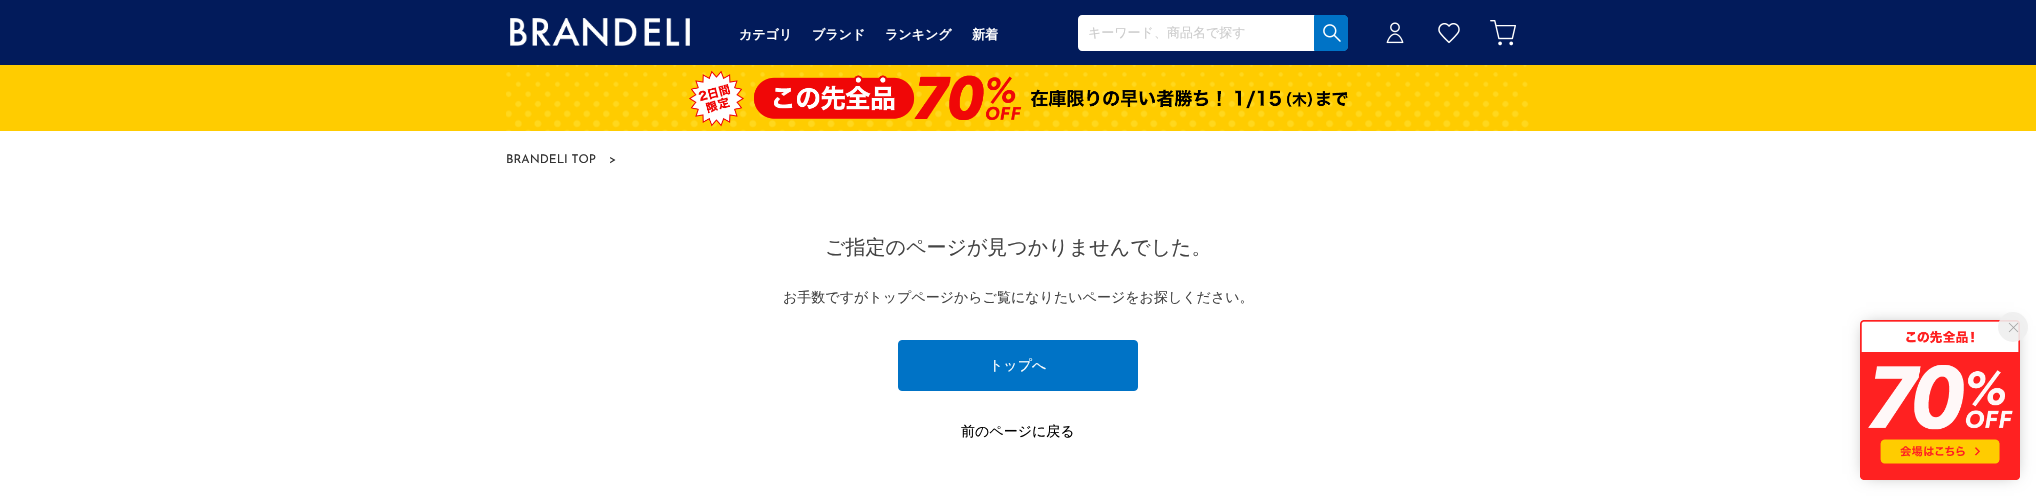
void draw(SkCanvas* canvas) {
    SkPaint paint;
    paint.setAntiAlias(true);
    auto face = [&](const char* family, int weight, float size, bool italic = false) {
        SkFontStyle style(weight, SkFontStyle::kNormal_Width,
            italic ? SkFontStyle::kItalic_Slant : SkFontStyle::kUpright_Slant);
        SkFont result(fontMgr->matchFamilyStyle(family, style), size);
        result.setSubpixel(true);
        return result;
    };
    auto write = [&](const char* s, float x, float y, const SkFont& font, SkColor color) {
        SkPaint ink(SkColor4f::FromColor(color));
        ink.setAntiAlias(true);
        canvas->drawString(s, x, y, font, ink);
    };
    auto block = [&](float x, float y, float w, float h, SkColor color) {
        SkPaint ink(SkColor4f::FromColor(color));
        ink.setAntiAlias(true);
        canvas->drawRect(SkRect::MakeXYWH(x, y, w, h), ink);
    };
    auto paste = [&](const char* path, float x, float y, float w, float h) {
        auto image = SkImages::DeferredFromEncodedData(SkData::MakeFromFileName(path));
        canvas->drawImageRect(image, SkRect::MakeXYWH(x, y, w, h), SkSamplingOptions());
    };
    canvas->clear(SK_ColorWHITE);
    block(0, 0, 2036, 65, SkColorSetRGB(2, 27, 91));
    paste("pic1.png", 510, 18, 180, 28);
    auto kFont1 = face("WenQuanYi Zen Hei", 700, 13);
    write("カテゴリ", 739, 39, kFont1, SK_ColorWHITE);
    write("ブランド", 812, 39, kFont1, SK_ColorWHITE);
    write("ランキング", 885, 39, kFont1, SK_ColorWHITE);
    write("新着", 972, 39, kFont1, SK_ColorWHITE);
    paint.setColor(SK_ColorWHITE);
    canvas->drawPath(SkPathBuilder().moveTo(1082, 15).lineTo(1342, 15).cubicTo(1345.5f, 15, 1348, 17.5f, 1348, 21).lineTo(1348, 45).cubicTo(1348, 48.5f, 1345.5f, 51, 1342, 51).lineTo(1082, 51).cubicTo(1080, 51, 1078, 49, 1078, 47).lineTo(1078, 19).cubicTo(1078, 17, 1080, 15, 1082, 15).close().detach(), paint);
    auto kFont2 = face("WenQuanYi Zen Hei", 500, 13);
    write("キーワード、商品名で探す", 1088, 37, kFont2, SkColorSetRGB(204, 204, 204));
    paint.setColor(SkColorSetRGB(0, 115, 198));
    canvas->drawPath(SkPathBuilder().moveTo(1314.5f, 15.5f).lineTo(1344, 15.5f).cubicTo(1346, 15.5f, 1347.5f, 17, 1347.5f, 19).lineTo(1347.5f, 47).cubicTo(1347.5f, 49, 1346, 50.5f, 1344, 50.5f).lineTo(1314.5f, 50.5f).close().detach(), paint);
    paint.setStyle(SkPaint::kStroke_Style);
    paint.setStrokeWidth(1);
    canvas->drawPath(SkPathBuilder().moveTo(1314.5f, 15.5f).lineTo(1344, 15.5f).cubicTo(1346, 15.5f, 1347.5f, 17, 1347.5f, 19).lineTo(1347.5f, 47).cubicTo(1347.5f, 49, 1346, 50.5f, 1344, 50.5f).lineTo(1314.5f, 50.5f).close().detach(), paint);
    paste("pic2.png", 1323, 24, 18, 18);
    paste("pic3.png", 1386, 22, 18, 22);
    paste("pic4.png", 1438, 23, 22, 21);
    paste("pic5.png", 1490, 20, 26, 26);
    block(0, 65, 2036, 66, SkColorSetRGB(255, 204, 0));
    paste("pic6.png", 506, 65, 1023, 66);
    paint.setStyle(SkPaint::kFill_Style);
    paint.setColor(SkColorSetARGB(102, 0, 0, 0));
    paint.setMaskFilter(SkMaskFilter::MakeBlur(kNormal_SkBlurStyle, 8));
    canvas->drawRect(SkRect::MakeXYWH(1866, 326, 148, 148), paint);
    paint.setMaskFilter(nullptr);
    paste("pic8.png", 1860, 320, 160, 160);
    paint.setColor(SkColorSetARGB(230, 238, 238, 238));
    canvas->drawCircle(2013, 327, 15, paint);
    paste("pic7.png", 2008, 322, 11, 11);
    auto kFont3 = face("Josefin Sans", 400, 12);
    write("BRANDELI TOP", 506, 163, kFont3, SkColorSetRGB(51, 51, 51));
    write(">", 609, 163, kFont3, SkColorSetRGB(51, 51, 51));
    auto kFont4 = face("WenQuanYi Zen Hei", 500, 20);
    write("ご指定のページが見つかりませんでした。", 825, 254, kFont4, SkColorSetRGB(68, 68, 68));
    auto kFont5 = face("WenQuanYi Zen Hei", 500, 14);
    write("お手数ですがトップページからご覧になりたいページをお探しください。", 783, 302, kFont5, SkColorSetRGB(68, 68, 68));
    paint.setColor(SkColorSetRGB(0, 115, 198));
    canvas->drawRoundRect(SkRect::MakeXYWH(898.5f, 340.5f, 239, 50), 3.5f, 3.5f, paint);
    paint.setStyle(SkPaint::kStroke_Style);
    canvas->drawRoundRect(SkRect::MakeXYWH(898.5f, 340.5f, 239, 50), 3.5f, 3.5f, paint);
    write("トップへ", 989, 370, kFont5, SK_ColorWHITE);
    write("前のページに戻る", 961, 436, kFont5, SK_ColorBLACK);
}
